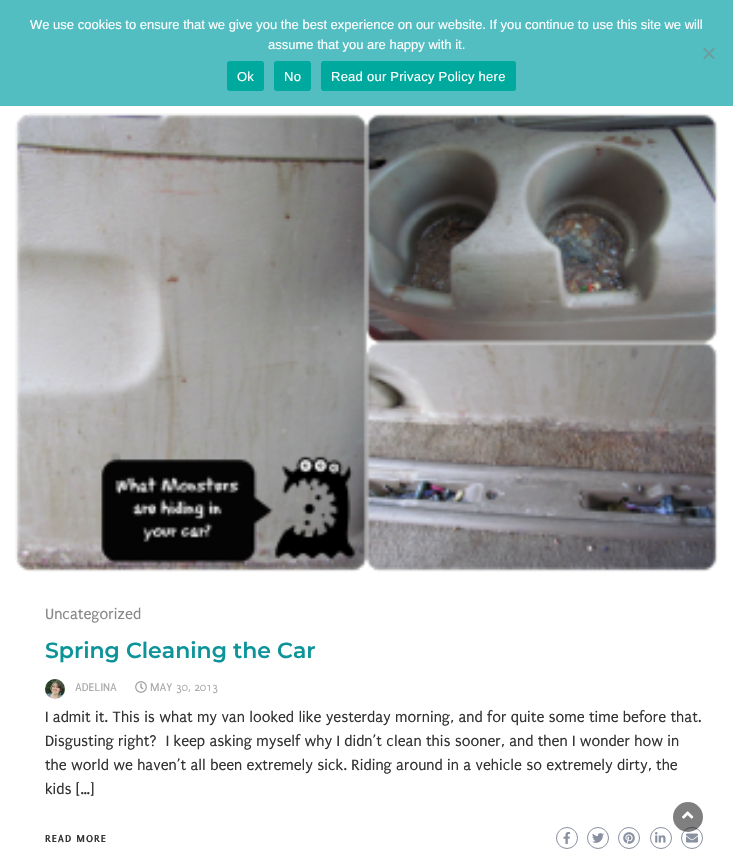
void draw(SkCanvas* canvas) {
    SkPaint paint;
    paint.setAntiAlias(true);
    auto face = [&](const char* family, int weight, float size, bool italic = false) {
        SkFontStyle style(weight, SkFontStyle::kNormal_Width,
            italic ? SkFontStyle::kItalic_Slant : SkFontStyle::kUpright_Slant);
        SkFont result(fontMgr->matchFamilyStyle(family, style), size);
        result.setSubpixel(true);
        return result;
    };
    auto write = [&](const char* s, float x, float y, const SkFont& font, SkColor color) {
        SkPaint ink(SkColor4f::FromColor(color));
        ink.setAntiAlias(true);
        canvas->drawString(s, x, y, font, ink);
    };
    auto writeSpaced = [&](const char* s, float x, float y, const SkFont& font, const SkPaint& ink, float letter, float word) {
        std::vector<SkGlyphID> glyphs(font.countText(s, strlen(s), SkTextEncoding::kUTF8));
        std::vector<float> xs(glyphs.size());
        font.textToGlyphs(s, strlen(s), SkTextEncoding::kUTF8, glyphs);
        font.getXPos(glyphs, xs, x);
        float extra = 0;
        for (size_t i = 0; i < glyphs.size(); i++) {
            xs[i] += extra;
            extra += letter + word * (glyphs[i] == font.unicharToGlyph(' '));
        }
        canvas->drawTextBlob(SkTextBlob::MakeFromPosHGlyphs(glyphs, xs, y, font), 0, 0, ink);
    };
    auto block = [&](float x, float y, float w, float h, SkColor color) {
        SkPaint ink(SkColor4f::FromColor(color));
        ink.setAntiAlias(true);
        canvas->drawRect(SkRect::MakeXYWH(x, y, w, h), ink);
    };
    auto card = [&](float x, float y, float w, float h, float radius, SkColor color) {
        SkPaint ink(SkColor4f::FromColor(color));
        ink.setAntiAlias(true);
        canvas->drawRoundRect(SkRect::MakeXYWH(x, y, w, h), radius, radius, ink);
    };
    auto paste = [&](const char* path, float x, float y, float w, float h) {
        auto image = SkImages::DeferredFromEncodedData(SkData::MakeFromFileName(path));
        canvas->drawImageRect(image, SkRect::MakeXYWH(x, y, w, h), SkSamplingOptions());
    };
    canvas->clear(SK_ColorWHITE);
    block(0, 0, 733, 106, SkColorSetRGB(83, 190, 193));
    auto kFont1 = face("Liberation Sans", 400, 13);
    write("We use cookies to ensure that we give you the best experience on our website. If you continue to use this site we will", 30, 29, kFont1, SK_ColorWHITE);
    write("assume that you are happy with it.", 268, 49, kFont1, SK_ColorWHITE);
    paint.setColor(SkColorSetRGB(106, 159, 161));
    canvas->drawPath(SkPathBuilder().moveTo(713.5f, 47.5f).lineTo(715, 49).lineTo(704.5f, 59.5f).lineTo(703, 58).close().detach(), paint);
    canvas->drawPath(SkPathBuilder().moveTo(703, 49).lineTo(704.5f, 47.5f).lineTo(715, 58).lineTo(713.5f, 59.5f).close().detach(), paint);
    card(227, 61, 37, 30, 3, SkColorSetRGB(0, 169, 157));
    paint.setColor(SK_ColorWHITE);
    writeSpaced("Ok", 237, 81, kFont1, paint, 0.25f, 0);
    card(274, 61, 37, 30, 3, SkColorSetRGB(0, 169, 157));
    writeSpaced("No", 284, 81, kFont1, paint, 0.25f, 0);
    card(321, 61, 195, 30, 3, SkColorSetRGB(0, 169, 157));
    writeSpaced("Read our Privacy Policy here", 331, 81, kFont1, paint, 0.25f, 0);
    paste("pic1.png", 15, 113, 703, 459);
    auto kFont2 = face("Puritan", 400, 16);
    write("Uncategorized", 45, 619, kFont2, SkColorSetRGB(136, 136, 136));
    auto kFont3 = face("Montserrat", 600, 22);
    write("Spring Cleaning the Car", 45, 658, kFont3, SkColorSetRGB(12, 148, 153));
    paste("pic2.png", 45, 679, 20, 20);
    auto kFont4 = face("Puritan", 400, 12);
    write("ADELINA", 75, 691, kFont4, SkColorSetRGB(170, 170, 170));
    paste("pic3.png", 135, 681, 12, 12);
    write("MAY 30, 2013", 150, 691, kFont4, SkColorSetRGB(170, 170, 170));
    write("I admit it. This is what my van looked like yesterday morning, and for quite some time before that.", 45, 722, kFont2, SkColorSetRGB(51, 51, 51));
    write("Disgusting right?  I keep asking myself why I didn’t clean this sooner, and then I wonder how in", 45, 746, kFont2, SkColorSetRGB(51, 51, 51));
    write("the world we haven’t all been extremely sick. Riding around in a vehicle so extremely dirty, the", 45, 770, kFont2, SkColorSetRGB(51, 51, 51));
    write("kids […]", 45, 794, kFont2, SkColorSetRGB(51, 51, 51));
    auto kFont5 = face("Puritan", 700, 11);
    paint.setColor(SkColorSetRGB(51, 51, 51));
    writeSpaced("READ MORE", 45, 842, kFont5, paint, 1, 0);
    paint.setStyle(SkPaint::kStroke_Style);
    paint.setStrokeWidth(1);
    paint.setColor(SkColorSetRGB(137, 144, 160));
    canvas->drawCircle(567, 838, 10.5f, paint);
    paste("pic4.png", 563, 832, 7, 12);
    canvas->drawCircle(598, 838, 10.5f, paint);
    paste("pic5.png", 592, 833, 12, 10);
    canvas->drawCircle(629, 838, 10.5f, paint);
    paste("pic6.png", 623, 832, 12, 12);
    canvas->drawCircle(661, 838, 10.5f, paint);
    paste("pic7.png", 655, 832, 11, 11);
    canvas->drawCircle(692, 838, 10.5f, paint);
    paste("pic8.png", 686, 833, 12, 10);
    paint.setStyle(SkPaint::kFill_Style);
    paint.setColor(SkColorSetARGB(128, 0, 0, 0));
    canvas->drawCircle(688, 817, 15, paint);
    paste("pic9.png", 682, 811, 12, 8);
}
